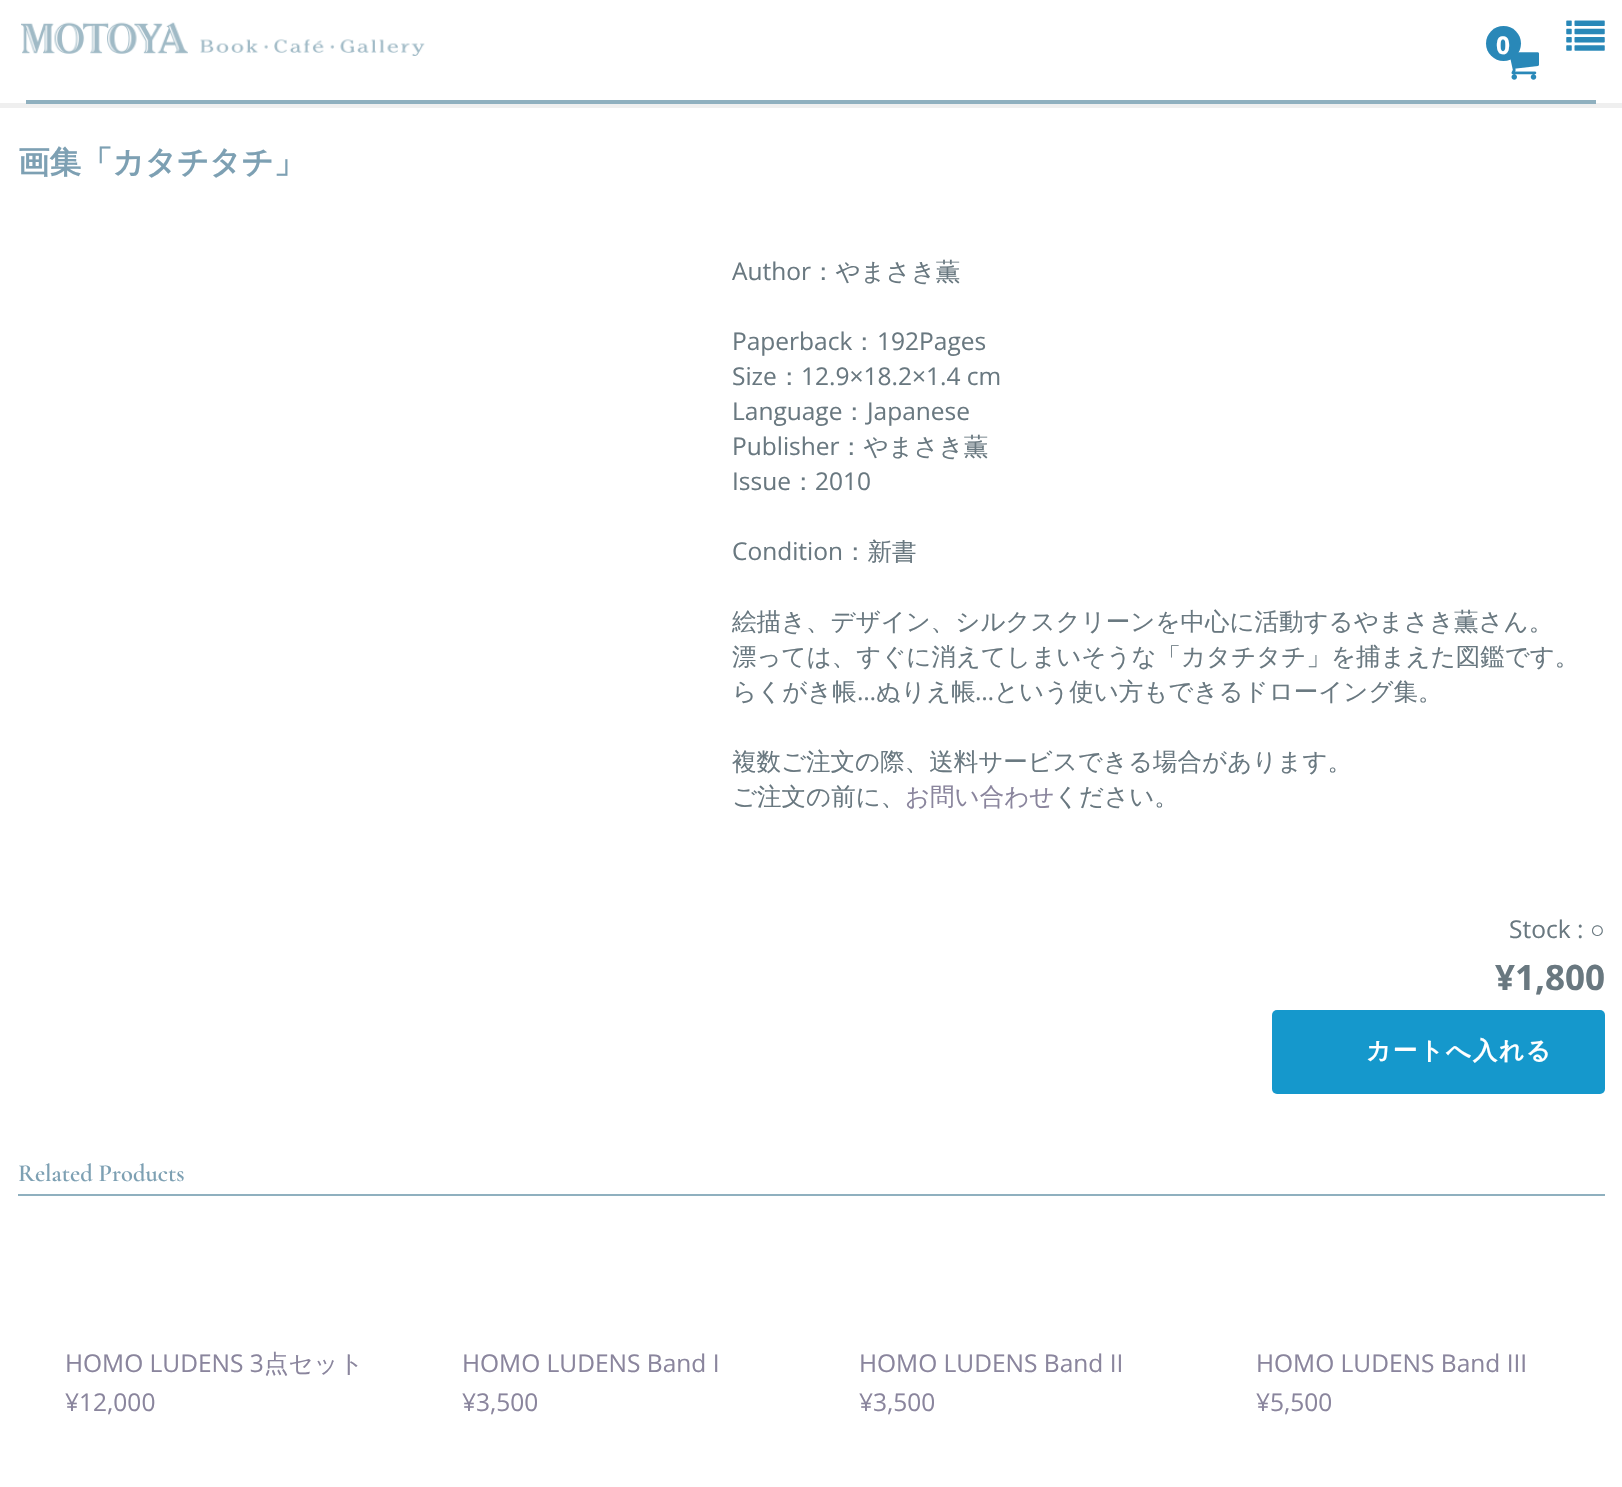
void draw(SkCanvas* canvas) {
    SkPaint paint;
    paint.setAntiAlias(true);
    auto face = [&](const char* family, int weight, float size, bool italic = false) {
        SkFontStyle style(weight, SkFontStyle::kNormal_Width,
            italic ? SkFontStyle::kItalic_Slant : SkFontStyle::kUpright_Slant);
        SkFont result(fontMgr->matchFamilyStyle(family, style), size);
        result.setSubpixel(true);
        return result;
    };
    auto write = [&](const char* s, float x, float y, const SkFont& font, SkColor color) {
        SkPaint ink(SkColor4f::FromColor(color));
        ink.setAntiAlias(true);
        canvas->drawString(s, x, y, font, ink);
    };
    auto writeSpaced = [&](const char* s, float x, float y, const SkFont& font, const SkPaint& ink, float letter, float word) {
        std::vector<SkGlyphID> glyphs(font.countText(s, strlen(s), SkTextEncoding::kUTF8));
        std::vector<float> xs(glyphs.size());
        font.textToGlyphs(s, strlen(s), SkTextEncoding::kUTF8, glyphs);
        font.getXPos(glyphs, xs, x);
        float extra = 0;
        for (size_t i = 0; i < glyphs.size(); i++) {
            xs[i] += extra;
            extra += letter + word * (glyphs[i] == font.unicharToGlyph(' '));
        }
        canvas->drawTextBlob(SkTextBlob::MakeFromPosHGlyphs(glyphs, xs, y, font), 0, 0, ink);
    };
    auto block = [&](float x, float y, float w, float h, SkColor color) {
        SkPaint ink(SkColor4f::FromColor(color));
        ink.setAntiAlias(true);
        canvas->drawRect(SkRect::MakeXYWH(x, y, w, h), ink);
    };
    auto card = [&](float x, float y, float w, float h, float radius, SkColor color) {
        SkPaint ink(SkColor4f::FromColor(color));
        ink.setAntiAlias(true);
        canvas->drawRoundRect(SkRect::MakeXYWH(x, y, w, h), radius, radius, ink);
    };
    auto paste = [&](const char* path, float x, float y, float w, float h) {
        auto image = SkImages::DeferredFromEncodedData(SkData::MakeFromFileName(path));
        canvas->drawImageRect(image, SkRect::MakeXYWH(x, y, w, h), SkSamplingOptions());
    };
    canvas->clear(SK_ColorWHITE);
    block(0, 103, 1622, 5, SkColorSetRGB(239, 239, 239));
    paste("pic1.png", 1566, 20, 39, 31);
    block(26, 100, 1570, 4, SkColorSetRGB(143, 176, 191));
    paste("pic2.png", 21, 22, 404, 34);
    paste("pic3.png", 1510, 52, 29, 28);
    paint.setColor(SkColorSetRGB(41, 136, 184));
    canvas->drawCircle(1503.5f, 43.5f, 17.5f, paint);
    auto kFont1 = face("Open Sans", 700, 24.5f);
    write("0", 1496, 54, kFont1, SK_ColorWHITE);
    auto kFont2 = face("WenQuanYi Zen Hei", 700, 31.5f);
    write("画集「カタチタチ」", 18, 173, kFont2, SkColorSetRGB(125, 160, 179));
    auto kFont3 = face("Open Sans", 400, 24.5f);
    write("Author", 732, 280, kFont3, SkColorSetRGB(105, 120, 128));
    auto kFont4 = face("WenQuanYi Zen Hei", 500, 24.5f);
    write("：やまさき薫", 811, 280, kFont4, SkColorSetRGB(105, 120, 128));
    write("Paperback", 732, 350, kFont3, SkColorSetRGB(105, 120, 128));
    write("：", 852, 350, kFont4, SkColorSetRGB(105, 120, 128));
    write("192Pages", 877, 350, kFont3, SkColorSetRGB(105, 120, 128));
    write("Size", 732, 385, kFont3, SkColorSetRGB(105, 120, 128));
    write("：", 777, 385, kFont4, SkColorSetRGB(105, 120, 128));
    write("12.9×18.2×1.4 cm", 801, 385, kFont3, SkColorSetRGB(105, 120, 128));
    write("Language", 732, 420, kFont3, SkColorSetRGB(105, 120, 128));
    write("：", 842, 420, kFont4, SkColorSetRGB(105, 120, 128));
    write("Japanese", 867, 420, kFont3, SkColorSetRGB(105, 120, 128));
    write("Publisher", 732, 455, kFont3, SkColorSetRGB(105, 120, 128));
    write("：やまさき薫", 839, 455, kFont4, SkColorSetRGB(105, 120, 128));
    write("Issue", 732, 490, kFont3, SkColorSetRGB(105, 120, 128));
    write("：", 791, 490, kFont4, SkColorSetRGB(105, 120, 128));
    write("2010", 815, 490, kFont3, SkColorSetRGB(105, 120, 128));
    write("Condition", 732, 560, kFont3, SkColorSetRGB(105, 120, 128));
    write("：新書", 843, 560, kFont4, SkColorSetRGB(105, 120, 128));
    write("絵描き、デザイン、シルクスクリーンを中心に活動するやまさき薫さん。", 732, 630, kFont4, SkColorSetRGB(105, 120, 128));
    write("漂っては、すぐに消えてしまいそうな「カタチタチ」を捕まえた図鑑です。", 732, 665, kFont4, SkColorSetRGB(105, 120, 128));
    write("らくがき帳", 732, 700, kFont4, SkColorSetRGB(105, 120, 128));
    write("…", 857, 700, kFont3, SkColorSetRGB(105, 120, 128));
    write("ぬりえ帳", 876, 700, kFont4, SkColorSetRGB(105, 120, 128));
    write("…", 975, 700, kFont3, SkColorSetRGB(105, 120, 128));
    write("という使い方もできるドローイング集。", 994, 700, kFont4, SkColorSetRGB(105, 120, 128));
    write("複数ご注文の際、送料サービスできる場合があります。", 732, 770, kFont4, SkColorSetRGB(105, 120, 128));
    write("ご注文の前に、", 732, 805, kFont4, SkColorSetRGB(105, 120, 128));
    write("お問い合わせ", 905, 805, kFont4, SkColorSetRGB(138, 133, 157));
    write("ください。", 1054, 805, kFont4, SkColorSetRGB(105, 120, 128));
    write("Stock :", 1509, 938, kFont3, SkColorSetRGB(105, 120, 128));
    auto kFont5 = face("Liberation Sans", 400, 24.5f);
    write("○", 1590, 938, kFont5, SkColorSetRGB(105, 120, 128));
    auto kFont6 = face("Open Sans", 700, 35);
    write("¥1,800", 1495, 990, kFont6, SkColorSetRGB(105, 120, 128));
    card(1272, 1010, 333, 84, 5, SkColorSetRGB(21, 152, 204));
    auto kFont7 = face("FontAwesome", 700, 24.5f);
    paint.setColor(SK_ColorWHITE);
    writeSpaced("", 1325, 1059, kFont7, paint, 1.75f, 0);
    auto kFont8 = face("WenQuanYi Zen Hei", 700, 24.5f);
    writeSpaced("カートへ入れる", 1366, 1059, kFont8, paint, 1.75f, 0);
    block(18, 1194, 1587, 2, SkColorSetRGB(143, 176, 191));
    auto kFont9 = face("Cormorant Garamond", 600, 24.5f);
    write("Related Products", 18, 1181, kFont9, SkColorSetRGB(125, 160, 179));
    write("HOMO LUDENS 3", 65, 1372, kFont3, SkColorSetRGB(138, 133, 157));
    write("点セット", 264, 1372, kFont4, SkColorSetRGB(138, 133, 157));
    write("¥12,000", 65, 1411, kFont3, SkColorSetRGB(138, 133, 157));
    write("HOMO LUDENS Band I", 462, 1372, kFont3, SkColorSetRGB(138, 133, 157));
    write("¥3,500", 462, 1411, kFont3, SkColorSetRGB(138, 133, 157));
    write("HOMO LUDENS Band II", 859, 1372, kFont3, SkColorSetRGB(138, 133, 157));
    write("¥3,500", 859, 1411, kFont3, SkColorSetRGB(138, 133, 157));
    write("HOMO LUDENS Band III", 1256, 1372, kFont3, SkColorSetRGB(138, 133, 157));
    write("¥5,500", 1256, 1411, kFont3, SkColorSetRGB(138, 133, 157));
}
